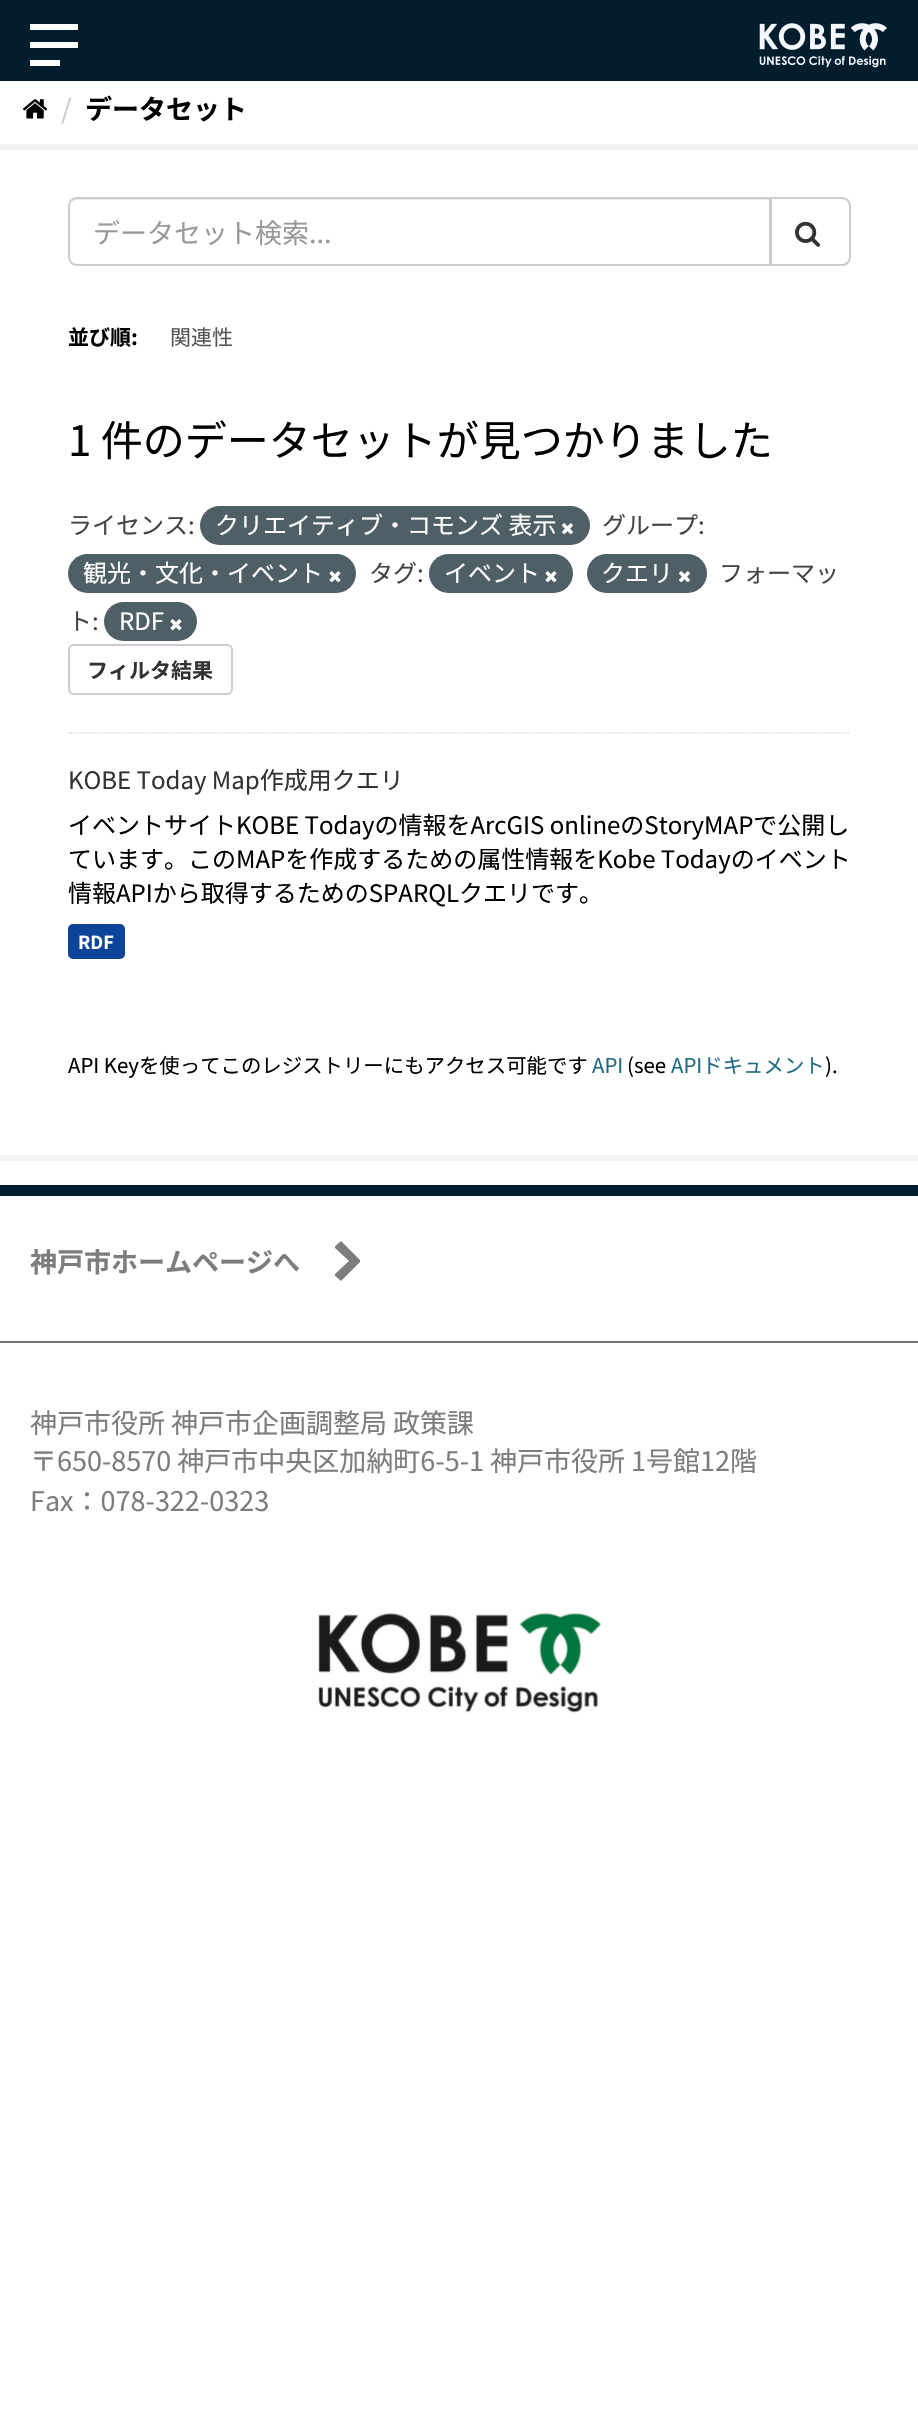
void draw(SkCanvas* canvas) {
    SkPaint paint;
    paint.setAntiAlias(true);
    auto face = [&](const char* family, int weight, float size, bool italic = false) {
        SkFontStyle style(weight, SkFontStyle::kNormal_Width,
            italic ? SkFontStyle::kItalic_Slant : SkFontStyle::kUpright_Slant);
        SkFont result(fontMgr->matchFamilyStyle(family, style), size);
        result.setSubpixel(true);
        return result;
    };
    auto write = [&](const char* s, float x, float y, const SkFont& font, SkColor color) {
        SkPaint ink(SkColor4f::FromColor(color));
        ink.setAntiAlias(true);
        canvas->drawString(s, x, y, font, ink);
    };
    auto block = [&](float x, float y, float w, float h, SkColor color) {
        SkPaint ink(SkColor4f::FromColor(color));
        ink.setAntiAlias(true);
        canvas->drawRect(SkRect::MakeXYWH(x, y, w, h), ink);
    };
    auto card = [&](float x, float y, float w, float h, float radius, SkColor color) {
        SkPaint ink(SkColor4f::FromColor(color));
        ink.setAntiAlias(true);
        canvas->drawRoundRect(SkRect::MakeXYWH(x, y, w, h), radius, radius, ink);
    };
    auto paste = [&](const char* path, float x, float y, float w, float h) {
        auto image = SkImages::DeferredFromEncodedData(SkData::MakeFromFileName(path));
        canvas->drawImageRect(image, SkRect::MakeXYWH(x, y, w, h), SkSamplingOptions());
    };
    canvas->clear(SK_ColorWHITE);
    block(0, 0, 918, 81, SkColorSetRGB(2, 29, 46));
    block(30, 24, 48, 6, SK_ColorWHITE);
    block(30, 42, 48, 6, SK_ColorWHITE);
    block(30, 60, 30, 6, SK_ColorWHITE);
    paste("pic1.png", 759, 23, 128, 45);
    paste("pic2.png", 23, 99, 25, 20);
    auto kFont1 = face("Noto Sans JP", 400, 27);
    write("/", 61, 119, kFont1, SkColorSetRGB(204, 204, 204));
    auto kFont2 = face("Noto Sans JP", 700, 27);
    write("データセット", 85, 119, kFont2, SK_ColorBLACK);
    paint.setStyle(SkPaint::kStroke_Style);
    paint.setStrokeWidth(6);
    paint.setColor(SkColorSetRGB(242, 242, 242));
    canvas->drawRect(SkRect::MakeXYWH(-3, 147, 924, 1011), paint);
    paint.setStrokeWidth(1.5f);
    paint.setColor(SkColorSetRGB(221, 221, 221));
    paint.setPathEffect(SkDashPathEffect::Make({{1.5f, 1.5f}}, 0));
    canvas->drawPath(SkPathBuilder().moveTo(67.5f, 733).lineTo(850.5f, 733).detach(), paint);
    paint.setPathEffect(nullptr);
    paint.setStyle(SkPaint::kFill_Style);
    paint.setColor(SkColorSetRGB(236, 236, 236));
    canvas->drawPath(SkPathBuilder().moveTo(76, 200).lineTo(770, 200).lineTo(770, 198).lineTo(77, 198).cubicTo(73, 198, 69, 202, 69, 206).lineTo(69, 207).cubicTo(69, 203, 72, 200, 76, 200).close().detach(), paint);
    paint.setStyle(SkPaint::kStroke_Style);
    paint.setStrokeWidth(2);
    paint.setColor(SkColorSetRGB(204, 204, 204));
    canvas->drawPath(SkPathBuilder().moveTo(77, 198).lineTo(770, 198).lineTo(770, 265).lineTo(77, 265).cubicTo(72.5f, 265, 69, 261.5f, 69, 257).lineTo(69, 206).cubicTo(69, 201.5f, 72.5f, 198, 77, 198).close().detach(), paint);
    write("データセット検索...", 93, 243, kFont1, SkColorSetRGB(153, 153, 153));
    paint.setStyle(SkPaint::kFill_Style);
    paint.setColor(SK_ColorWHITE);
    canvas->drawPath(SkPathBuilder().moveTo(771, 198).lineTo(842, 198).cubicTo(846.5f, 198, 850, 201.5f, 850, 206).lineTo(850, 257).cubicTo(850, 261.5f, 846.5f, 265, 842, 265).lineTo(771, 265).close().detach(), paint);
    paint.setStyle(SkPaint::kStroke_Style);
    paint.setColor(SkColorSetRGB(204, 204, 204));
    canvas->drawPath(SkPathBuilder().moveTo(771, 198).lineTo(842, 198).cubicTo(846.5f, 198, 850, 201.5f, 850, 206).lineTo(850, 257).cubicTo(850, 261.5f, 846.5f, 265, 842, 265).lineTo(771, 265).close().detach(), paint);
    paste("pic3.png", 795, 221, 25, 26);
    auto kFont3 = face("Noto Sans JP", 700, 21);
    write("並び順:", 68, 345, kFont3, SK_ColorBLACK);
    auto kFont4 = face("Noto Sans JP", 400, 21);
    write("関連性", 170, 345, kFont4, SkColorSetRGB(85, 85, 85));
    auto kFont5 = face("Noto Sans JP", 400, 42);
    write("1 件のデータセットが見つかりました", 68, 456, kFont5, SK_ColorBLACK);
    auto kFont6 = face("Noto Sans JP", 400, 24);
    write("ライセンス:", 68, 534, kFont6, SkColorSetRGB(68, 68, 68));
    card(200, 506, 390, 39, 19.5f, SkColorSetRGB(78, 95, 101));
    write("クリエイティブ・コモンズ 表示", 215, 534, kFont6, SK_ColorWHITE);
    paste("pic4.png", 562, 523, 11, 12);
    write("グループ:", 602, 534, kFont6, SkColorSetRGB(68, 68, 68));
    card(68, 554, 288, 39, 19.5f, SkColorSetRGB(78, 95, 101));
    write("観光・文化・イベント", 83, 582, kFont6, SK_ColorWHITE);
    paste("pic5.png", 329, 571, 12, 12);
    write("タグ:", 369, 582, kFont6, SkColorSetRGB(68, 68, 68));
    card(429, 554, 144, 39, 19.5f, SkColorSetRGB(78, 95, 101));
    write("イベント", 444, 582, kFont6, SK_ColorWHITE);
    paste("pic5.png", 545, 571, 12, 12);
    card(587, 554, 120, 39, 19.5f, SkColorSetRGB(78, 95, 101));
    write("クエリ", 601, 582, kFont6, SK_ColorWHITE);
    paste("pic4.png", 679, 571, 11, 12);
    write("フォーマッ", 719, 582, kFont6, SkColorSetRGB(68, 68, 68));
    write("ト:", 68, 630, kFont6, SkColorSetRGB(68, 68, 68));
    card(104, 602, 93, 39, 19.5f, SkColorSetRGB(78, 95, 101));
    write("RDF", 119, 630, kFont6, SK_ColorWHITE);
    paste("pic5.png", 170, 619, 12, 12);
    canvas->drawRoundRect(SkRect::MakeXYWH(69, 645, 163, 49), 5, 5, paint);
    write("フィルタ結果", 87, 678, kFont3, SkColorSetRGB(51, 51, 51));
    write("KOBE Today Map作成用クエリ", 68, 789, kFont6, SkColorSetRGB(51, 51, 51));
    write("イベントサイトKOBE Todayの情報をArcGIS onlineのStoryMAPで公開し", 68, 834, kFont6, SK_ColorBLACK);
    write("ています。このMAPを作成するための属性情報をKobe Todayのイベント", 68, 868, kFont6, SK_ColorBLACK);
    write("情報APIから取得するためのSPARQLクエリです。", 68, 902, kFont6, SK_ColorBLACK);
    card(68, 924, 57, 35, 5, SkColorSetRGB(11, 68, 152));
    auto kFont7 = face("Noto Sans JP", 700, 18);
    write("RDF", 78, 949, kFont7, SK_ColorWHITE);
    auto kFont8 = face("Noto Sans JP", 400, 20.4f);
    write("API Keyを使ってこのレジストリーにもアクセス可能です", 68, 1073, kFont8, SK_ColorBLACK);
    write("API", 592, 1073, kFont8, SkColorSetRGB(32, 107, 130));
    write("(see", 627, 1073, kFont8, SK_ColorBLACK);
    write("APIドキュメント", 671, 1073, kFont8, SkColorSetRGB(32, 107, 130));
    write(").", 825, 1073, kFont8, SK_ColorBLACK);
    block(0, 1185, 918, 11, SkColorSetRGB(2, 29, 46));
    canvas->save();
    canvas->clipRect(SkRect::MakeXYWH(335, 1241, 25, 40));
    paint.setStyle(SkPaint::kFill_Style);
    paint.setColor(SkColorSetRGB(125, 125, 125));
    canvas->drawPath(SkPathBuilder().moveTo(361, 1261).lineTo(341, 1281).lineTo(334, 1275).lineTo(349, 1261).lineTo(334, 1247).lineTo(341, 1241).close().detach(), paint);
    canvas->restore();
    write("神戸市ホームページへ", 30, 1272, kFont2, SkColorSetRGB(125, 125, 125));
    block(0, 1341, 918, 2, SkColorSetRGB(112, 112, 112));
    write("神戸市役所 神戸市企画調整局 政策課", 30, 1433, kFont1, SkColorSetRGB(125, 125, 125));
    write("〒650-8570 神戸市中央区加納町6-5-1 神戸市役所 1号館12階", 30, 1471, kFont1, SkColorSetRGB(125, 125, 125));
    write("Fax：078-322-0323", 30, 1511, kFont1, SkColorSetRGB(125, 125, 125));
    paste("pic6.png", 318, 1611, 284, 103);
}
